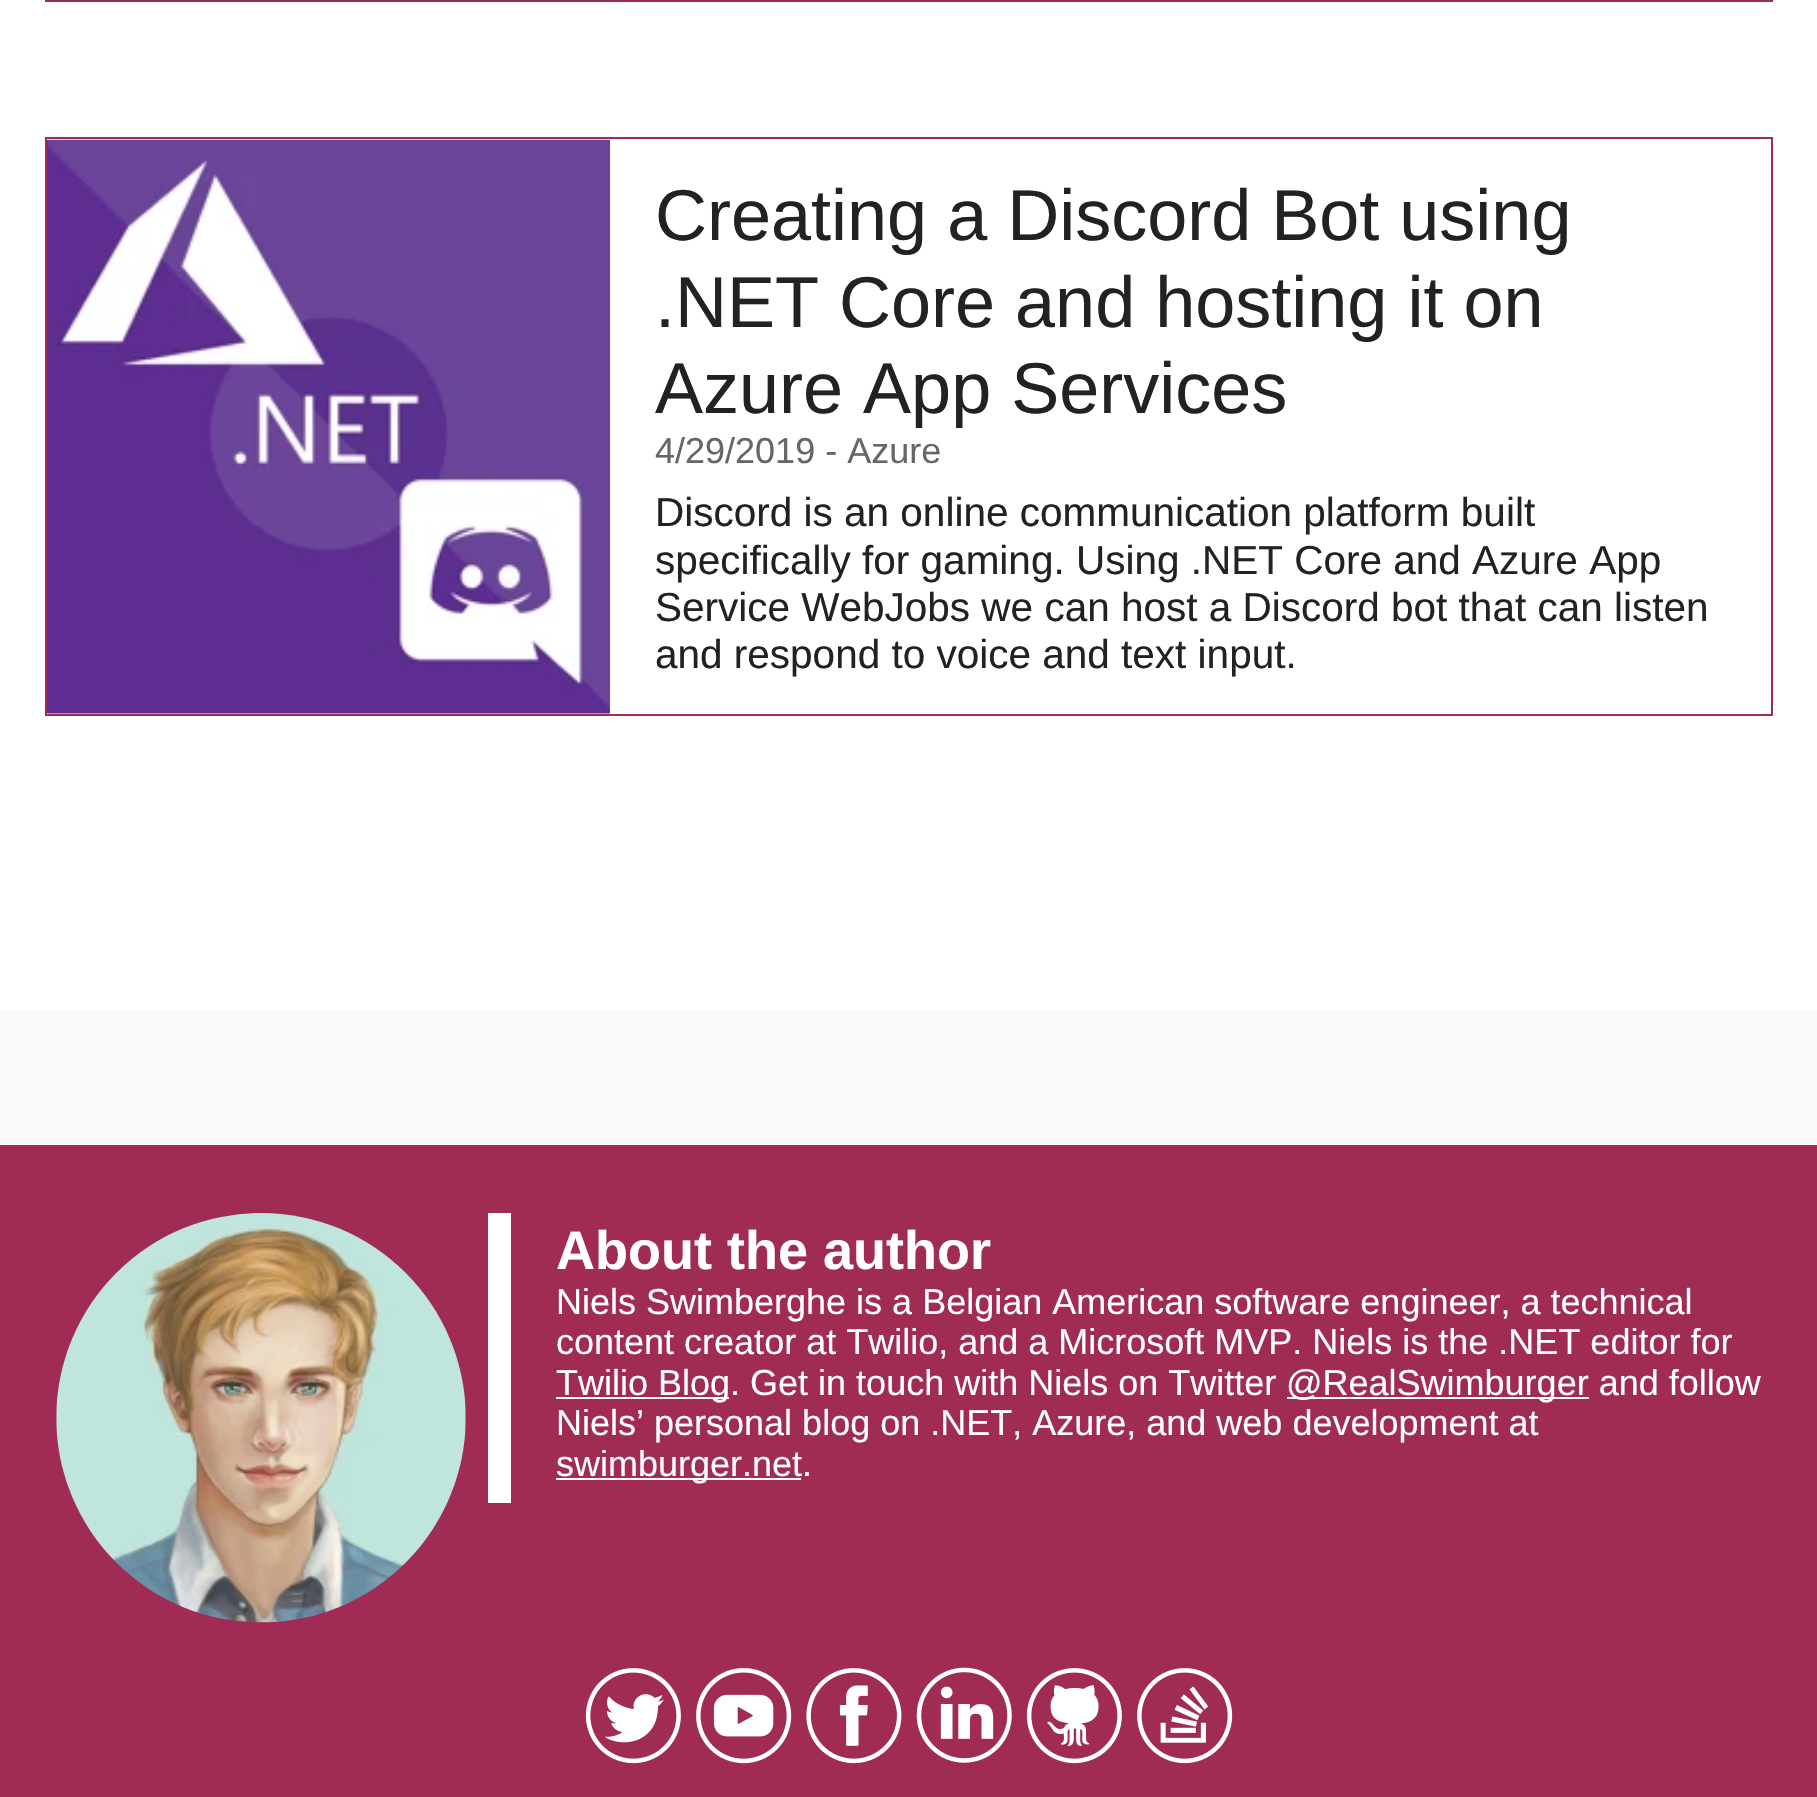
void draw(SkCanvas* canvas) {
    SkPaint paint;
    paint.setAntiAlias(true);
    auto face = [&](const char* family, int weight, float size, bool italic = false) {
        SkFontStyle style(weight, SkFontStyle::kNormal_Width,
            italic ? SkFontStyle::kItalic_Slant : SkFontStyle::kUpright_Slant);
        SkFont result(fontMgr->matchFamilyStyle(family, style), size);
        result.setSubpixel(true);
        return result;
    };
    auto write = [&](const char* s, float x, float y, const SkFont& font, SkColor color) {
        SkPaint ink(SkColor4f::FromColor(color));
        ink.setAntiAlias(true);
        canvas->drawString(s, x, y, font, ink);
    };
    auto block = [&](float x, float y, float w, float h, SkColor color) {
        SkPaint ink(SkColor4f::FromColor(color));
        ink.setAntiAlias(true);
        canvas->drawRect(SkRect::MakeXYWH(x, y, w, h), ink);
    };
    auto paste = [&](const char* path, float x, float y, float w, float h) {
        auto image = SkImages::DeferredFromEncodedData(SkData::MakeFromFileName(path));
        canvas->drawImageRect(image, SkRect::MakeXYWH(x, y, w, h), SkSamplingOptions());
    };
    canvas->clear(SkColorSetRGB(250, 250, 250));
    block(0, 0, 1817, 1010, SK_ColorWHITE);
    paint.setStyle(SkPaint::kStroke_Style);
    paint.setStrokeWidth(2);
    paint.setColor(SkColorSetRGB(160, 44, 86));
    canvas->drawRect(SkRect::MakeXYWH(46, -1, 1726, 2), paint);
    paste("pic1.png", 47, 0, 563, 1);
    canvas->drawRect(SkRect::MakeXYWH(46, 138, 1726, 577), paint);
    block(47, 140, 563, 573, SkColorSetRGB(91, 45, 145));
    paste("pic2.png", 47, 139, 563, 575);
    auto kFont1 = face("Liberation Sans", 400, 72);
    write("Creating a Discord Bot using", 655, 240, kFont1, SkColorSetRGB(34, 34, 34));
    write(".NET Core and hosting it on", 655, 327, kFont1, SkColorSetRGB(34, 34, 34));
    write("Azure App Services", 655, 413, kFont1, SkColorSetRGB(34, 34, 34));
    auto kFont2 = face("Liberation Sans", 400, 36);
    write("4/29/2019 - Azure", 655, 463, kFont2, SkColorSetRGB(102, 102, 102));
    auto kFont3 = face("Liberation Sans", 400, 40.5f);
    write("Discord is an online communication platform built", 655, 526, kFont3, SkColorSetRGB(34, 34, 34));
    write("specifically for gaming. Using .NET Core and Azure App", 655, 574, kFont3, SkColorSetRGB(34, 34, 34));
    write("Service WebJobs we can host a Discord bot that can listen", 655, 621, kFont3, SkColorSetRGB(34, 34, 34));
    write("and respond to voice and text input.", 655, 668, kFont3, SkColorSetRGB(34, 34, 34));
    block(0, 1145, 1817, 652, SkColorSetRGB(160, 44, 86));
    paste("pic3.png", 56, 1213, 410, 410);
    block(488, 1213, 23, 290, SK_ColorWHITE);
    auto kFont4 = face("Liberation Sans", 700, 54);
    write("About the author", 556, 1269, kFont4, SK_ColorWHITE);
    write("Niels Swimberghe is a Belgian American software engineer, a technical", 556, 1314, kFont2, SK_ColorWHITE);
    write("content creator at Twilio, and a Microsoft MVP. Niels is the .NET editor for", 556, 1354, kFont2, SK_ColorWHITE);
    block(556, 1397, 173, 2, SK_ColorWHITE);
    write("Twilio Blog. Get in touch with Niels on Twitter", 556, 1395, kFont2, SK_ColorWHITE);
    block(1287, 1397, 302, 2, SK_ColorWHITE);
    write("@RealSwimburger and follow", 1286, 1395, kFont2, SK_ColorWHITE);
    write("Niels’ personal blog on .NET, Azure, and web development at", 556, 1435, kFont2, SK_ColorWHITE);
    block(556, 1478, 245, 2, SK_ColorWHITE);
    write("swimburger.net.", 556, 1476, kFont2, SK_ColorWHITE);
    paste("pic4.png", 585, 1668, 96, 96);
    paste("pic5.png", 696, 1668, 96, 96);
    paste("pic6.png", 806, 1668, 96, 96);
    paste("pic7.png", 916, 1667, 96, 96);
    paste("pic8.png", 1026, 1668, 96, 96);
    paste("pic9.png", 1137, 1668, 96, 96);
}
